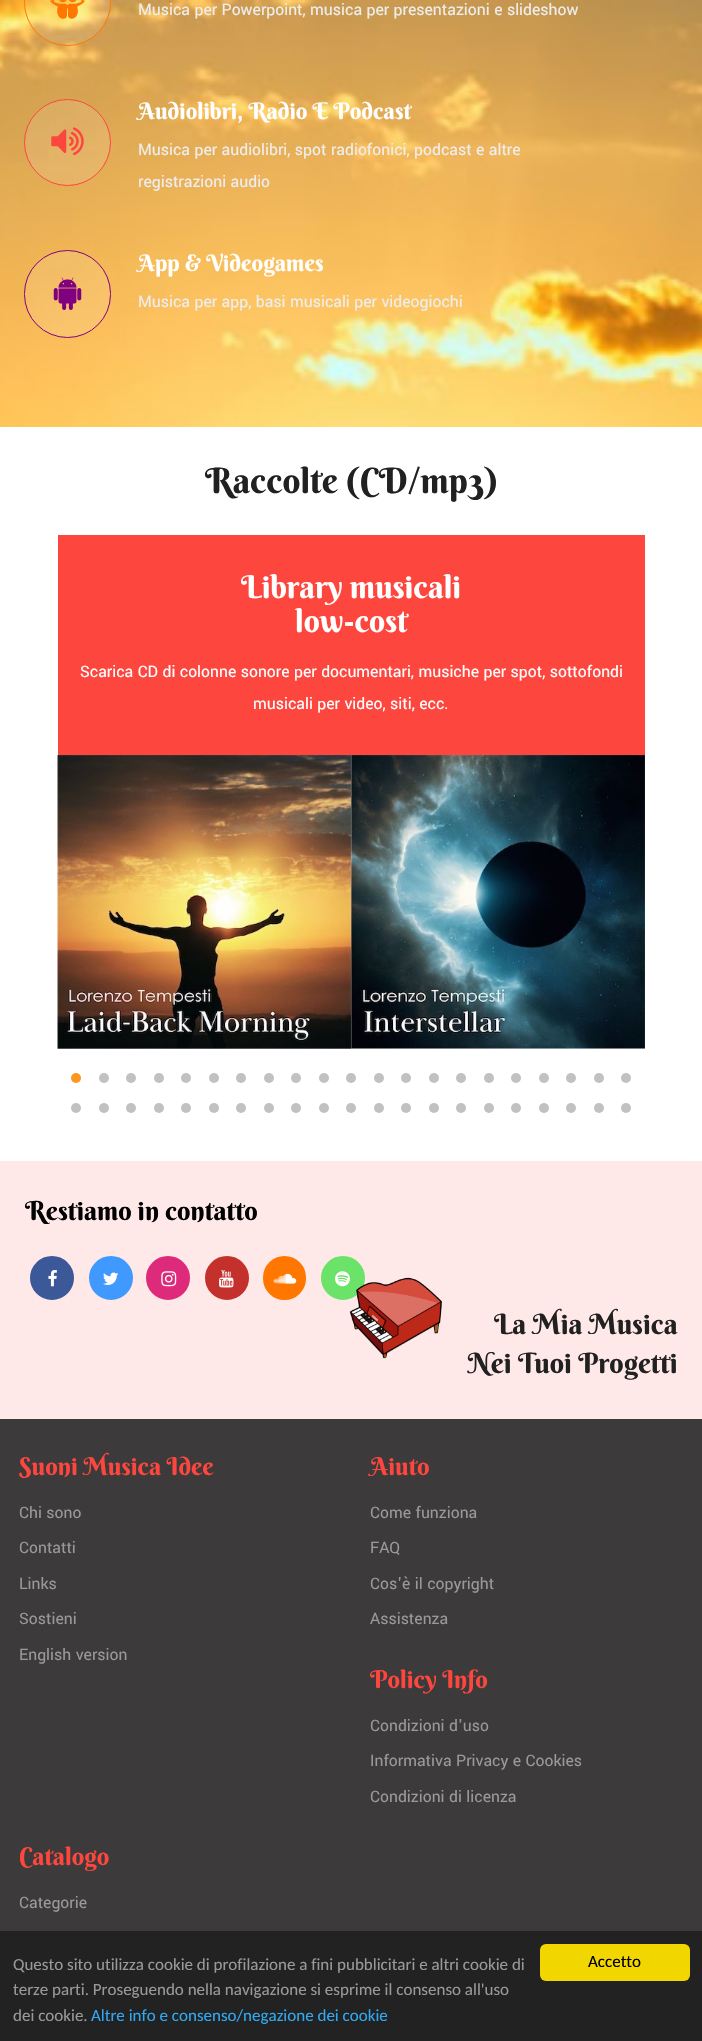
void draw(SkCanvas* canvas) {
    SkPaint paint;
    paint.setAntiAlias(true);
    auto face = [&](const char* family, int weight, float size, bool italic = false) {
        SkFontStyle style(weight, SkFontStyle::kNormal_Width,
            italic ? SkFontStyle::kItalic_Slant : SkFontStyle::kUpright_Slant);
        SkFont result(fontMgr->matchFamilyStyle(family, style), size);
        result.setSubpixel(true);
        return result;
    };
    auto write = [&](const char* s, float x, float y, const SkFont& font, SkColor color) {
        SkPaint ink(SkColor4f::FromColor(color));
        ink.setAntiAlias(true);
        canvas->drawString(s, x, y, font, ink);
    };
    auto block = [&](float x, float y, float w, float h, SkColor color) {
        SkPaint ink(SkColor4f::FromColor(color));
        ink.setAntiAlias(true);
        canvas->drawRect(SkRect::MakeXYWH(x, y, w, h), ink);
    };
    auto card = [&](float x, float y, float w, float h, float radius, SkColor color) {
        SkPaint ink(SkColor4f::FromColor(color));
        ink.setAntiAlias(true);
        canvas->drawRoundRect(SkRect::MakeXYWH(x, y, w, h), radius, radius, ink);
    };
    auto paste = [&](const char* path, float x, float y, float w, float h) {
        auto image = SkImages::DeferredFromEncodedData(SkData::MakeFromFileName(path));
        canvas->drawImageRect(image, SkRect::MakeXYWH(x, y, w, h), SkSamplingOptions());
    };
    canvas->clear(SK_ColorWHITE);
    paste("pic1.png", 0, 0, 702, 427);
    paint.setColor(SkColorSetARGB(26, 255, 255, 255));
    canvas->drawCircle(67.5f, 2.5f, 43, paint);
    paint.setStyle(SkPaint::kStroke_Style);
    paint.setStrokeWidth(1);
    paint.setColor(SkColorSetRGB(255, 119, 0));
    canvas->drawCircle(67.5f, 2.5f, 43, paint);
    paste("pic2.png", 50, 0, 35, 19);
    auto kFont1 = face("Yantramanav", 400, 17.5f);
    write("Musica per Powerpoint, musica per presentazioni e slideshow", 138, 15, kFont1, SkColorSetRGB(238, 238, 238));
    paint.setStyle(SkPaint::kFill_Style);
    paint.setColor(SkColorSetARGB(26, 255, 255, 255));
    canvas->drawCircle(67.5f, 142.5f, 43, paint);
    paint.setStyle(SkPaint::kStroke_Style);
    paint.setColor(SkColorSetRGB(253, 70, 62));
    canvas->drawCircle(67.5f, 142.5f, 43, paint);
    paste("pic3.png", 51, 127, 33, 29);
    auto kFont2 = face("Berkshire Swash", 400, 22.75f);
    write("Audiolibri, Radio E Podcast", 138, 119, kFont2, SK_ColorWHITE);
    write("Musica per audiolibri, spot radiofonici, podcast e altre", 138, 155, kFont1, SkColorSetRGB(238, 238, 238));
    write("registrazioni audio", 138, 187, kFont1, SkColorSetRGB(238, 238, 238));
    paint.setStyle(SkPaint::kFill_Style);
    paint.setColor(SkColorSetARGB(26, 255, 255, 255));
    canvas->drawRoundRect(SkRect::MakeXYWH(24.5f, 250.5f, 86, 87), 43, 43, paint);
    paint.setStyle(SkPaint::kStroke_Style);
    paint.setColor(SkColorSetRGB(128, 0, 128));
    canvas->drawRoundRect(SkRect::MakeXYWH(24.5f, 250.5f, 86, 87), 43, 43, paint);
    paste("pic4.png", 53, 277, 29, 33);
    write("App & Videogames", 138, 271, kFont2, SK_ColorWHITE);
    write("Musica per app, basi musicali per videogiochi", 138, 307, kFont1, SkColorSetRGB(238, 238, 238));
    auto kFont3 = face("Berkshire Swash", 400, 35);
    write("Raccolte (CD/mp3)", 205, 493, kFont3, SkColorSetRGB(33, 33, 33));
    block(58, 535, 587, 220, SkColorSetRGB(253, 70, 62));
    auto kFont4 = face("Berkshire Swash", 400, 31.5f);
    write("Library musicali", 241, 598, kFont4, SK_ColorWHITE);
    write("low-cost", 295, 632, kFont4, SK_ColorWHITE);
    write("Scarica CD di colonne sonore per documentari, musiche per spot, sottofondi", 80, 677, kFont1, SK_ColorWHITE);
    write("musicali per video, siti, ecc.", 253, 709, kFont1, SK_ColorWHITE);
    paste("pic5.png", 57, 755, 295, 294);
    paste("pic6.png", 351, 755, 294, 294);
    paint.setStyle(SkPaint::kFill_Style);
    paint.setColor(SkColorSetRGB(253, 150, 30));
    canvas->drawCircle(76, 1078, 5, paint);
    paint.setColor(SkColorSetRGB(193, 193, 193));
    canvas->drawCircle(104, 1078, 5, paint);
    canvas->drawCircle(131, 1078, 5, paint);
    canvas->drawCircle(159, 1078, 5, paint);
    canvas->drawCircle(186, 1078, 5, paint);
    canvas->drawCircle(214, 1078, 5, paint);
    canvas->drawCircle(241, 1078, 5, paint);
    canvas->drawCircle(269, 1078, 5, paint);
    canvas->drawCircle(296, 1078, 5, paint);
    canvas->drawCircle(324, 1078, 5, paint);
    canvas->drawCircle(351, 1078, 5, paint);
    canvas->drawCircle(379, 1078, 5, paint);
    canvas->drawCircle(406, 1078, 5, paint);
    canvas->drawCircle(434, 1078, 5, paint);
    canvas->drawCircle(461, 1078, 5, paint);
    canvas->drawCircle(489, 1078, 5, paint);
    canvas->drawCircle(516, 1078, 5, paint);
    canvas->drawCircle(544, 1078, 5, paint);
    canvas->drawCircle(571, 1078, 5, paint);
    canvas->drawCircle(599, 1078, 5, paint);
    canvas->drawCircle(626, 1078, 5, paint);
    canvas->drawCircle(76, 1108, 5, paint);
    canvas->drawCircle(104, 1108, 5, paint);
    canvas->drawCircle(131, 1108, 5, paint);
    canvas->drawCircle(159, 1108, 5, paint);
    canvas->drawCircle(186, 1108, 5, paint);
    canvas->drawCircle(214, 1108, 5, paint);
    canvas->drawCircle(241, 1108, 5, paint);
    canvas->drawCircle(269, 1108, 5, paint);
    canvas->drawCircle(296, 1108, 5, paint);
    canvas->drawCircle(324, 1108, 5, paint);
    canvas->drawCircle(351, 1108, 5, paint);
    canvas->drawCircle(379, 1108, 5, paint);
    canvas->drawCircle(406, 1108, 5, paint);
    canvas->drawCircle(434, 1108, 5, paint);
    canvas->drawCircle(461, 1108, 5, paint);
    canvas->drawCircle(489, 1108, 5, paint);
    canvas->drawCircle(516, 1108, 5, paint);
    canvas->drawCircle(544, 1108, 5, paint);
    canvas->drawCircle(571, 1108, 5, paint);
    canvas->drawCircle(599, 1108, 5, paint);
    canvas->drawCircle(626, 1108, 5, paint);
    block(0, 1161, 702, 258, SkColorSetRGB(255, 233, 232));
    auto kFont5 = face("Berkshire Swash", 400, 26.25f);
    write("Restiamo in contatto", 25, 1220, kFont5, SK_ColorBLACK);
    paint.setColor(SkColorSetRGB(59, 89, 152));
    canvas->drawCircle(52, 1278, 20.5f, paint);
    paint.setStyle(SkPaint::kStroke_Style);
    paint.setStrokeWidth(3);
    canvas->drawCircle(52, 1278, 20.5f, paint);
    paste("pic7.png", 48, 1270, 9, 17);
    paint.setStyle(SkPaint::kFill_Style);
    paint.setColor(SkColorSetRGB(64, 153, 255));
    canvas->drawCircle(111, 1278, 20.5f, paint);
    paint.setStyle(SkPaint::kStroke_Style);
    canvas->drawCircle(111, 1278, 20.5f, paint);
    paste("pic8.png", 103, 1272, 16, 13);
    paint.setStyle(SkPaint::kFill_Style);
    paint.setColor(SkColorSetRGB(221, 42, 123));
    canvas->drawCircle(168, 1278, 20.5f, paint);
    paint.setStyle(SkPaint::kStroke_Style);
    canvas->drawCircle(168, 1278, 20.5f, paint);
    paste("pic9.png", 161, 1271, 16, 16);
    paint.setStyle(SkPaint::kFill_Style);
    paint.setColor(SkColorSetRGB(196, 48, 43));
    canvas->drawCircle(227, 1278, 20.5f, paint);
    paint.setStyle(SkPaint::kStroke_Style);
    canvas->drawCircle(227, 1278, 20.5f, paint);
    paste("pic10.png", 219, 1270, 15, 18);
    paint.setStyle(SkPaint::kFill_Style);
    paint.setColor(SkColorSetRGB(255, 119, 0));
    canvas->drawRoundRect(SkRect::MakeXYWH(264.5f, 1257.5f, 40, 41), 20, 20, paint);
    paint.setStyle(SkPaint::kStroke_Style);
    canvas->drawRoundRect(SkRect::MakeXYWH(264.5f, 1257.5f, 40, 41), 20, 20, paint);
    paste("pic11.png", 273, 1273, 24, 11);
    paint.setStyle(SkPaint::kFill_Style);
    paint.setColor(SkColorSetRGB(106, 227, 104));
    canvas->drawCircle(343, 1278, 20.5f, paint);
    paint.setStyle(SkPaint::kStroke_Style);
    canvas->drawCircle(343, 1278, 20.5f, paint);
    paste("pic12.png", 335, 1271, 15, 16);
    paste("pic13.png", 349, 1277, 93, 82);
    auto kFont6 = face("Berkshire Swash", 400, 28);
    write("La Mia Musica", 494, 1334, kFont6, SkColorSetRGB(33, 33, 33));
    write("Nei Tuoi Progetti", 468, 1373, kFont6, SkColorSetRGB(33, 33, 33));
    block(0, 1419, 702, 512, SkColorSetRGB(60, 58, 58));
    auto kFont7 = face("Berkshire Swash", 400, 24.5f);
    write("Suoni Musica Idee", 19, 1475, kFont7, SkColorSetRGB(253, 70, 62));
    write("Chi sono", 19, 1518, kFont1, SkColorSetRGB(153, 153, 153));
    write("Contatti", 19, 1553, kFont1, SkColorSetRGB(153, 153, 153));
    write("Links", 19, 1589, kFont1, SkColorSetRGB(153, 153, 153));
    write("Sostieni", 19, 1624, kFont1, SkColorSetRGB(153, 153, 153));
    write("English version", 19, 1660, kFont1, SkColorSetRGB(153, 153, 153));
    write("Aiuto", 370, 1475, kFont7, SkColorSetRGB(253, 70, 62));
    write("Come funziona", 370, 1518, kFont1, SkColorSetRGB(153, 153, 153));
    write("FAQ", 370, 1553, kFont1, SkColorSetRGB(153, 153, 153));
    write("Cos'è il copyright", 370, 1589, kFont1, SkColorSetRGB(153, 153, 153));
    write("Assistenza", 370, 1624, kFont1, SkColorSetRGB(153, 153, 153));
    write("Policy Info", 370, 1688, kFont7, SkColorSetRGB(253, 70, 62));
    write("Condizioni d'uso", 370, 1731, kFont1, SkColorSetRGB(153, 153, 153));
    write("Informativa Privacy e Cookies", 370, 1766, kFont1, SkColorSetRGB(153, 153, 153));
    write("Condizioni di licenza", 370, 1802, kFont1, SkColorSetRGB(153, 153, 153));
    write("Catalogo", 19, 1865, kFont7, SkColorSetRGB(253, 70, 62));
    write("Categorie", 19, 1908, kFont1, SkColorSetRGB(153, 153, 153));
    block(0, 1931, 702, 110, SkColorSetRGB(34, 34, 34));
    auto kFont8 = face("Carlito", 400, 17);
    write("Questo sito utilizza cookie di profilazione a fini pubblicitari e altri cookie di", 13, 1970, kFont8, SkColorSetRGB(153, 153, 153));
    write("terze parti. Proseguendo nella navigazione si esprime il consenso all'uso", 13, 1995, kFont8, SkColorSetRGB(153, 153, 153));
    write("dei cookie.", 13, 2021, kFont8, SkColorSetRGB(153, 153, 153));
    write("Altre info e consenso/negazione dei cookie", 91, 2021, kFont8, SkColorSetRGB(49, 168, 240));
    card(540, 1944, 150, 37, 6, SkColorSetRGB(241, 214, 0));
    write("Accetto", 588, 1967, kFont8, SK_ColorBLACK);
}
